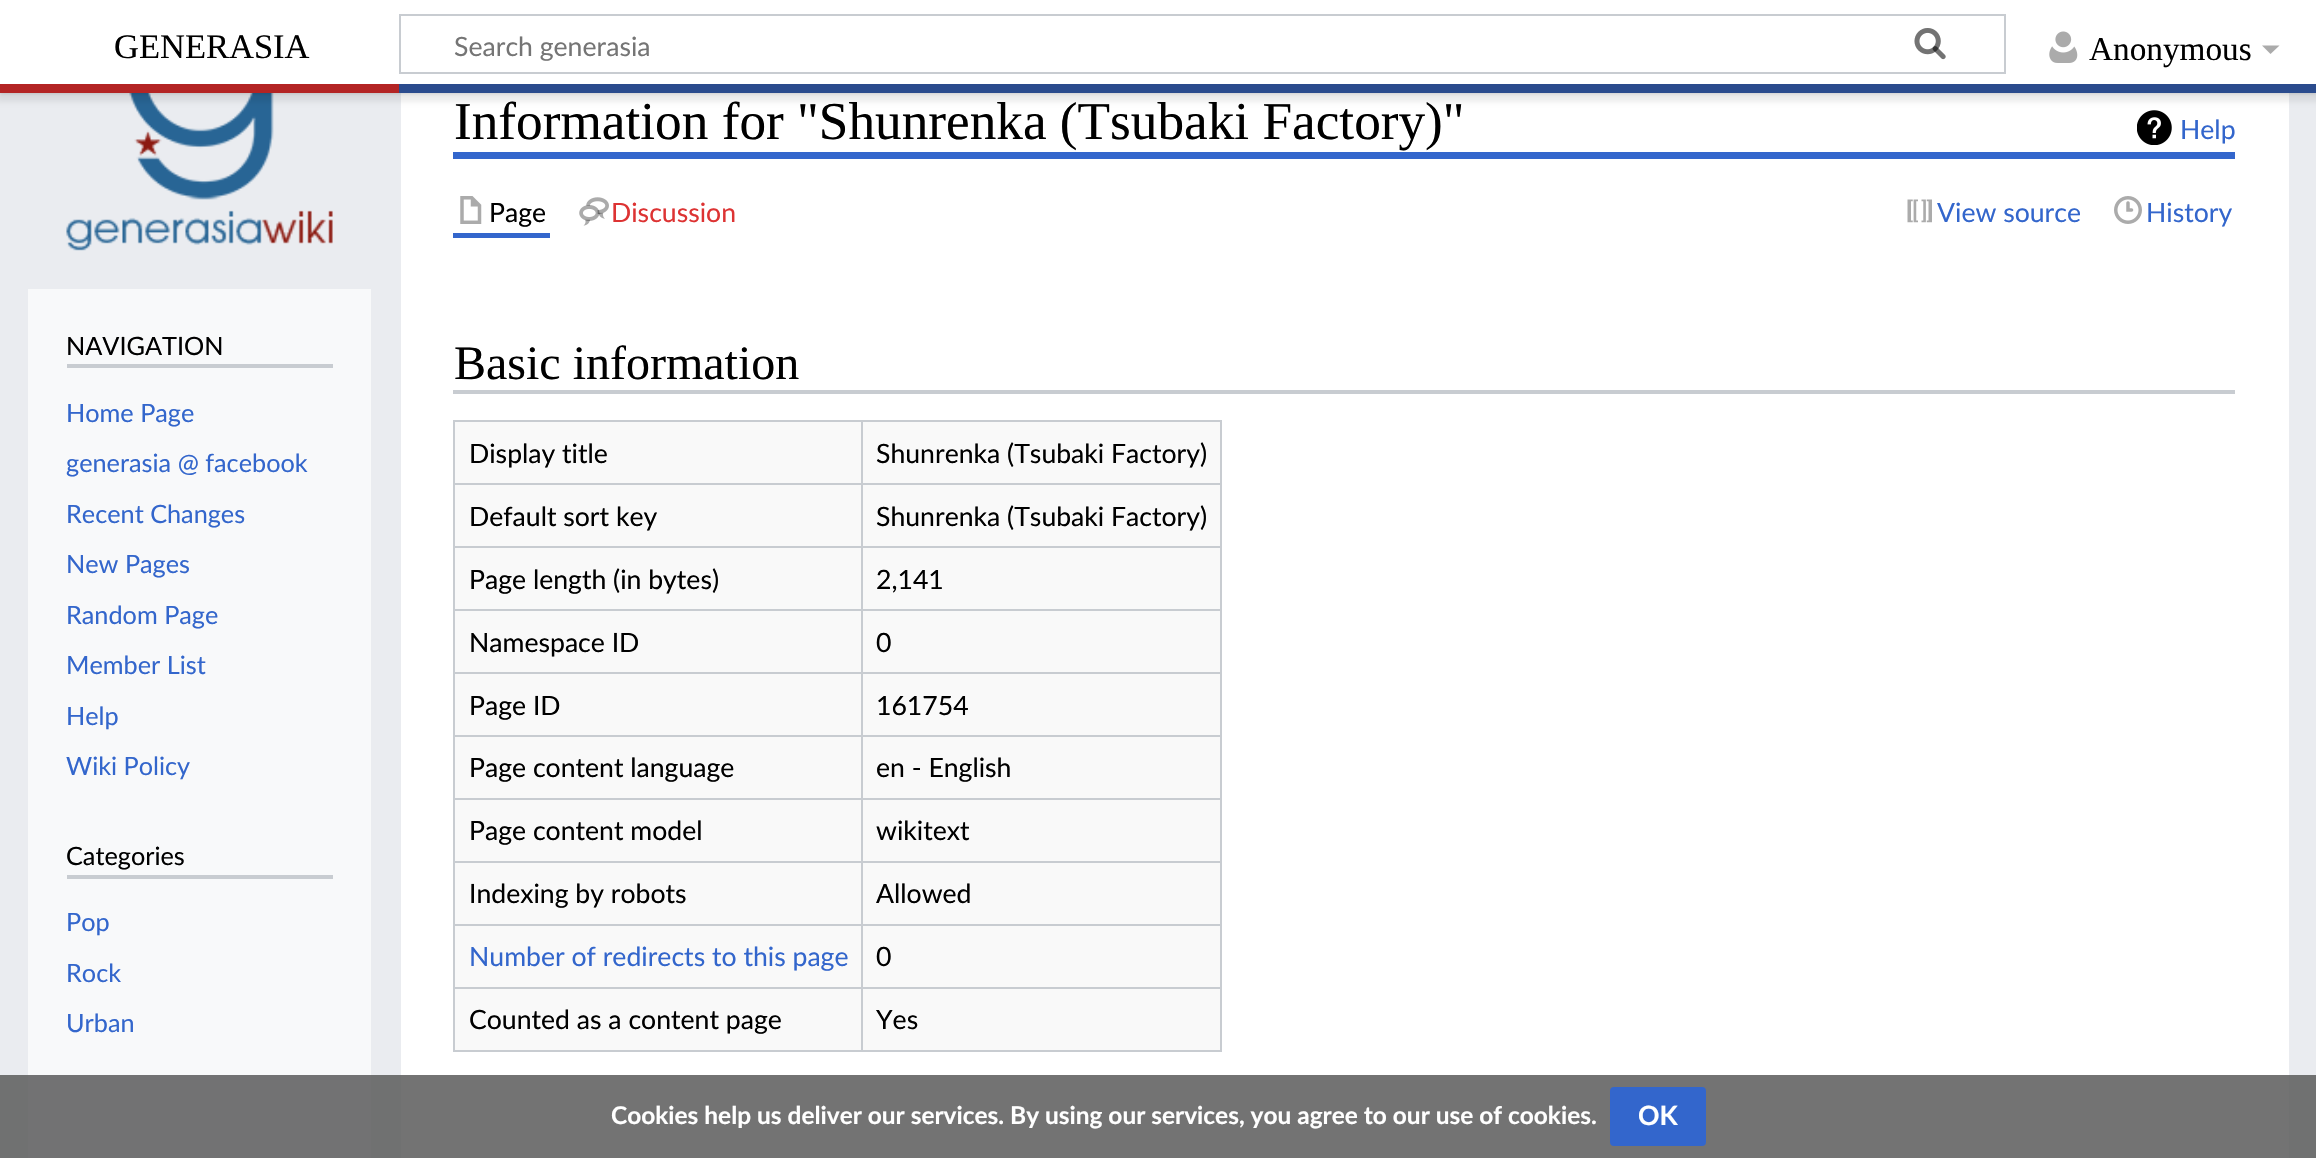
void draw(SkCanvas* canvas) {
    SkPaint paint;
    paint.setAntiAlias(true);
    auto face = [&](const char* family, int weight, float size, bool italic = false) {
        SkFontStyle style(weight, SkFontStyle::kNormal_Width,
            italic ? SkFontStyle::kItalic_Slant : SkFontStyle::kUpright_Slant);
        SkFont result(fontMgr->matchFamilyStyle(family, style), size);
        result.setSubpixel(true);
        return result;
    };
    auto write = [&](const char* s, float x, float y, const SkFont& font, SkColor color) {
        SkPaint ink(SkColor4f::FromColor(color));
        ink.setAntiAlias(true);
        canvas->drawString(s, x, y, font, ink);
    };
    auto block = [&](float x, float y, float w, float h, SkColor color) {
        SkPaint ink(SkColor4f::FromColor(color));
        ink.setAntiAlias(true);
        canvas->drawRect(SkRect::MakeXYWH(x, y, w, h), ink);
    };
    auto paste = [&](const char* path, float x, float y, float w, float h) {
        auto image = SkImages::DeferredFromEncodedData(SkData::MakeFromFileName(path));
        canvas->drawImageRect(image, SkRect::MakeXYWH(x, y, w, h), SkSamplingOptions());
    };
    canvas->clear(SkColorSetRGB(234, 236, 240));
    paste("pic4.png", 66, 93, 267, 158);
    block(401, 93, 1888, 1065, SK_ColorWHITE);
    paint.setColor(SkColorSetARGB(51, 0, 0, 0));
    paint.setMaskFilter(SkMaskFilter::MakeBlur(kNormal_SkBlurStyle, 2));
    canvas->drawRect(SkRect::MakeXYWH(0, 84, 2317, 9), paint);
    paint.setMaskFilter(nullptr);
    paste("pic5.png", 2137, 110, 35, 35);
    paint.setColor(SkColorSetARGB(18, 0, 0, 0));
    paint.setMaskFilter(SkMaskFilter::MakeBlur(kNormal_SkBlurStyle, 2.5f));
    canvas->drawRect(SkRect::MakeXYWH(-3, 86, 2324, 16), paint);
    paint.setMaskFilter(nullptr);
    block(0, 0, 2316, 84, SK_ColorWHITE);
    auto kFont1 = face("Liberation Serif", 400, 34.5f);
    write("GENERASIA", 114, 58, kFont1, SK_ColorBLACK);
    paint.setStyle(SkPaint::kStroke_Style);
    paint.setStrokeWidth(2);
    paint.setColor(SkColorSetRGB(200, 204, 209));
    canvas->drawRect(SkRect::MakeXYWH(400, 15, 1605, 58), paint);
    paste("pic1.png", 1914, 28, 32, 32);
    auto kFont2 = face("Lato", 400, 26.6f);
    write("Search generasia", 454, 56, kFont2, SkColorSetRGB(117, 117, 117));
    paste("pic2.png", 1914, 28, 32, 32);
    paste("pic3.png", 2049, 31, 29, 32);
    auto kFont3 = face("Liberation Serif", 400, 33.25f);
    write("Anonymous", 2089, 60, kFont3, SK_ColorBLACK);
    paint.setStyle(SkPaint::kFill_Style);
    paint.setColor(SkColorSetRGB(171, 171, 171));
    canvas->drawPath(SkPathBuilder().moveTo(2279.5f, 45.5f).lineTo(2270.5f, 54).lineTo(2262, 45.5f).close().detach(), paint);
    block(0, 84, 399, 9, SkColorSetRGB(179, 36, 36));
    block(399, 84, 1917, 9, SkColorSetRGB(42, 75, 141));
    block(28, 289, 343, 869, SkColorSetRGB(248, 249, 250));
    block(67, 364, 266, 4, SkColorSetRGB(200, 204, 209));
    auto kFont4 = face("Lato", 400, 25.25f);
    write("NAVIGATION", 66, 355, kFont4, SK_ColorBLACK);
    write("Home Page", 66, 422, kFont4, SkColorSetRGB(51, 102, 204));
    write("generasia @ facebook", 66, 472, kFont4, SkColorSetRGB(51, 102, 204));
    write("Recent Changes", 66, 523, kFont4, SkColorSetRGB(51, 102, 204));
    write("New Pages", 66, 573, kFont4, SkColorSetRGB(51, 102, 204));
    write("Random Page", 66, 624, kFont4, SkColorSetRGB(51, 102, 204));
    write("Member List", 66, 674, kFont4, SkColorSetRGB(51, 102, 204));
    write("Help", 66, 725, kFont4, SkColorSetRGB(51, 102, 204));
    write("Wiki Policy", 66, 775, kFont4, SkColorSetRGB(51, 102, 204));
    block(67, 875, 266, 4, SkColorSetRGB(200, 204, 209));
    write("Categories", 66, 865, kFont4, SK_ColorBLACK);
    write("Pop", 66, 931, kFont4, SkColorSetRGB(51, 102, 204));
    write("Rock", 66, 982, kFont4, SkColorSetRGB(51, 102, 204));
    write("Urban", 66, 1032, kFont4, SkColorSetRGB(51, 102, 204));
    block(453, 152, 1782, 7, SkColorSetRGB(51, 102, 204));
    auto kFont5 = face("Liberation Serif", 400, 53.25f);
    write("Information for \"Shunrenka (Tsubaki Factory)\"", 454, 139, kFont5, SK_ColorBLACK);
    write("Help", 2180, 139, kFont2, SkColorSetRGB(51, 102, 204));
    block(453, 233, 97, 5, SkColorSetRGB(51, 102, 204));
    paste("pic6.png", 460, 196, 22, 28);
    write("Page", 489, 222, kFont2, SK_ColorBLACK);
    paste("pic7.png", 579, 197, 30, 29);
    write("Discussion", 611, 222, kFont2, SkColorSetRGB(221, 51, 51));
    paste("pic8.png", 1907, 199, 25, 24);
    write("View source", 1937, 222, kFont2, SkColorSetRGB(51, 102, 204));
    paste("pic9.png", 2114, 196, 28, 28);
    write("History", 2146, 222, kFont2, SkColorSetRGB(51, 102, 204));
    block(453, 390, 1782, 4, SkColorSetRGB(200, 204, 209));
    auto kFont6 = face("Liberation Serif", 400, 48);
    write("Basic information", 454, 379, kFont6, SK_ColorBLACK);
    block(455, 422, 765, 628, SkColorSetRGB(249, 249, 249));
    block(861, 420, 361, 2, SkColorSetRGB(200, 204, 209));
    block(861, 483, 361, 2, SkColorSetRGB(200, 204, 209));
    block(861, 546, 361, 2, SkColorSetRGB(200, 204, 209));
    block(861, 609, 361, 2, SkColorSetRGB(200, 204, 209));
    block(861, 672, 361, 2, SkColorSetRGB(200, 204, 209));
    block(861, 735, 361, 2, SkColorSetRGB(200, 204, 209));
    block(861, 798, 361, 2, SkColorSetRGB(200, 204, 209));
    block(861, 861, 361, 2, SkColorSetRGB(200, 204, 209));
    block(861, 924, 361, 2, SkColorSetRGB(200, 204, 209));
    block(861, 987, 361, 2, SkColorSetRGB(200, 204, 209));
    block(1220, 987, 2, 65, SkColorSetRGB(200, 204, 209));
    block(861, 1050, 361, 2, SkColorSetRGB(200, 204, 209));
    block(861, 987, 2, 65, SkColorSetRGB(200, 204, 209));
    block(453, 987, 410, 2, SkColorSetRGB(200, 204, 209));
    block(861, 924, 2, 65, SkColorSetRGB(200, 204, 209));
    block(453, 924, 410, 2, SkColorSetRGB(200, 204, 209));
    block(861, 861, 2, 65, SkColorSetRGB(200, 204, 209));
    block(453, 861, 410, 2, SkColorSetRGB(200, 204, 209));
    block(861, 798, 2, 65, SkColorSetRGB(200, 204, 209));
    block(453, 798, 410, 2, SkColorSetRGB(200, 204, 209));
    block(861, 735, 2, 65, SkColorSetRGB(200, 204, 209));
    block(453, 735, 410, 2, SkColorSetRGB(200, 204, 209));
    block(861, 672, 2, 65, SkColorSetRGB(200, 204, 209));
    block(453, 672, 410, 2, SkColorSetRGB(200, 204, 209));
    block(861, 609, 2, 65, SkColorSetRGB(200, 204, 209));
    block(453, 609, 410, 2, SkColorSetRGB(200, 204, 209));
    block(861, 546, 2, 65, SkColorSetRGB(200, 204, 209));
    block(453, 546, 410, 2, SkColorSetRGB(200, 204, 209));
    block(861, 483, 2, 65, SkColorSetRGB(200, 204, 209));
    block(453, 483, 410, 2, SkColorSetRGB(200, 204, 209));
    block(861, 420, 2, 65, SkColorSetRGB(200, 204, 209));
    block(453, 420, 410, 2, SkColorSetRGB(200, 204, 209));
    block(453, 1050, 410, 2, SkColorSetRGB(200, 204, 209));
    block(453, 987, 2, 65, SkColorSetRGB(200, 204, 209));
    block(453, 924, 2, 65, SkColorSetRGB(200, 204, 209));
    block(453, 861, 2, 65, SkColorSetRGB(200, 204, 209));
    block(453, 798, 2, 65, SkColorSetRGB(200, 204, 209));
    block(453, 735, 2, 65, SkColorSetRGB(200, 204, 209));
    block(453, 672, 2, 65, SkColorSetRGB(200, 204, 209));
    block(453, 609, 2, 65, SkColorSetRGB(200, 204, 209));
    block(453, 546, 2, 65, SkColorSetRGB(200, 204, 209));
    block(453, 483, 2, 65, SkColorSetRGB(200, 204, 209));
    block(453, 420, 2, 65, SkColorSetRGB(200, 204, 209));
    write("Display title", 469, 463, kFont2, SK_ColorBLACK);
    block(1220, 924, 2, 65, SkColorSetRGB(200, 204, 209));
    block(1220, 861, 2, 65, SkColorSetRGB(200, 204, 209));
    block(1220, 798, 2, 65, SkColorSetRGB(200, 204, 209));
    block(1220, 735, 2, 65, SkColorSetRGB(200, 204, 209));
    block(1220, 672, 2, 65, SkColorSetRGB(200, 204, 209));
    block(1220, 609, 2, 65, SkColorSetRGB(200, 204, 209));
    block(1220, 546, 2, 65, SkColorSetRGB(200, 204, 209));
    block(1220, 483, 2, 65, SkColorSetRGB(200, 204, 209));
    block(1220, 420, 2, 65, SkColorSetRGB(200, 204, 209));
    write("Shunrenka (Tsubaki Factory)", 876, 463, kFont2, SK_ColorBLACK);
    write("Default sort key", 469, 526, kFont2, SK_ColorBLACK);
    write("Shunrenka (Tsubaki Factory)", 876, 526, kFont2, SK_ColorBLACK);
    write("Page length (in bytes)", 469, 589, kFont2, SK_ColorBLACK);
    write("2,141", 876, 589, kFont2, SK_ColorBLACK);
    write("Namespace ID", 469, 652, kFont2, SK_ColorBLACK);
    write("0", 876, 652, kFont2, SK_ColorBLACK);
    write("Page ID", 469, 715, kFont2, SK_ColorBLACK);
    write("161754", 876, 715, kFont2, SK_ColorBLACK);
    write("Page content language", 469, 777, kFont2, SK_ColorBLACK);
    write("en - English", 876, 777, kFont2, SK_ColorBLACK);
    write("Page content model", 469, 840, kFont2, SK_ColorBLACK);
    write("wikitext", 876, 840, kFont2, SK_ColorBLACK);
    write("Indexing by robots", 469, 903, kFont2, SK_ColorBLACK);
    write("Allowed", 876, 903, kFont2, SK_ColorBLACK);
    write("Number of redirects to this page", 469, 966, kFont2, SkColorSetRGB(51, 102, 204));
    write("0", 876, 966, kFont2, SK_ColorBLACK);
    write("Counted as a content page", 469, 1029, kFont2, SK_ColorBLACK);
    write("Yes", 876, 1029, kFont2, SK_ColorBLACK);
    block(0, 1075, 2316, 83, SkColorSetARGB(217, 90, 90, 90));
    auto kFont7 = face("Lato", 700, 24.45f);
    write("Cookies help us deliver our services. By using our services, you agree to our use of cookies.", 611, 1124, kFont7, SK_ColorWHITE);
    paint.setColor(SkColorSetRGB(51, 102, 204));
    canvas->drawRoundRect(SkRect::MakeXYWH(1611, 1088, 94, 57), 3, 3, paint);
    paint.setStyle(SkPaint::kStroke_Style);
    canvas->drawRoundRect(SkRect::MakeXYWH(1611, 1088, 94, 57), 3, 3, paint);
    auto kFont8 = face("Lato", 700, 26.6f);
    write("OK", 1638, 1125, kFont8, SK_ColorWHITE);
}
